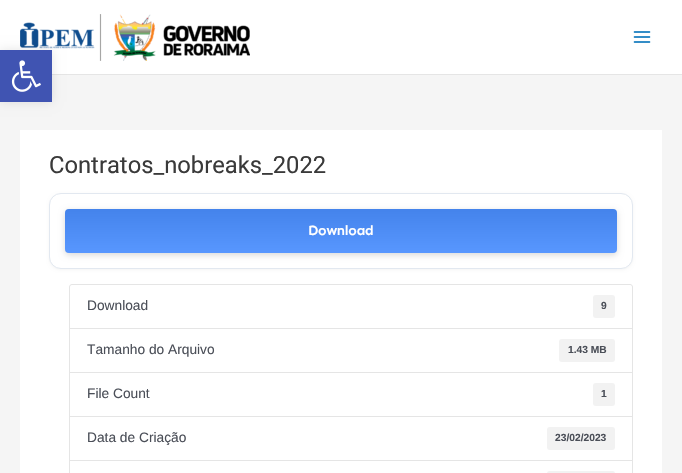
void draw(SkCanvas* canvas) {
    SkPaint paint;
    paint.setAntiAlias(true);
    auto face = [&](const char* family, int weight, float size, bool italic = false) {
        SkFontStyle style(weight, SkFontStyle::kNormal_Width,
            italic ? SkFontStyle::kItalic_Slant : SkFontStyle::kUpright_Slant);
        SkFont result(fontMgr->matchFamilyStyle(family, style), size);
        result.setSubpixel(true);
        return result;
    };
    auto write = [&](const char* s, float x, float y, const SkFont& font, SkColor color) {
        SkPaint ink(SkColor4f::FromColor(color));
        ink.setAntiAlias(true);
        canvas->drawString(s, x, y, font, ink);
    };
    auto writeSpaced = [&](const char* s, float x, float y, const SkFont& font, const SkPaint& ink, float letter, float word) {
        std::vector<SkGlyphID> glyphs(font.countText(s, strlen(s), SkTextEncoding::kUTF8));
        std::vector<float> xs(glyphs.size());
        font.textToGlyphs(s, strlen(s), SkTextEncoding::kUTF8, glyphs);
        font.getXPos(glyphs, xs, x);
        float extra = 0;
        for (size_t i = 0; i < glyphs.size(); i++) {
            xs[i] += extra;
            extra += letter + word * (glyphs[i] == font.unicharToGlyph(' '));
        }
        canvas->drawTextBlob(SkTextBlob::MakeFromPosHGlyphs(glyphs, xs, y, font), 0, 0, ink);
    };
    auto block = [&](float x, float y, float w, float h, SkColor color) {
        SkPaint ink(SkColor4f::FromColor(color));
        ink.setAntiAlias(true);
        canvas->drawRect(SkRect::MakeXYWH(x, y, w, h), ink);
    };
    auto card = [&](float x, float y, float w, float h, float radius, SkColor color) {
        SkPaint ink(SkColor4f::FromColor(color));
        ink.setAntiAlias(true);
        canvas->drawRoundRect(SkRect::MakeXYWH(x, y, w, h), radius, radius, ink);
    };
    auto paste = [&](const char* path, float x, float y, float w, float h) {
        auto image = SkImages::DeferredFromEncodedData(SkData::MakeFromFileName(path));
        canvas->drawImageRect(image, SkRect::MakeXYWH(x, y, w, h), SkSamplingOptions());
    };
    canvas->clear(SkColorSetRGB(245, 245, 245));
    block(0, 0, 682, 74, SK_ColorWHITE);
    block(52, 74, 630, 1, SkColorSetRGB(229, 229, 229));
    paste("pic2.png", 20, 14, 230, 47);
    paint.setColor(SkColorSetARGB(26, 0, 0, 0));
    paint.setMaskFilter(SkMaskFilter::MakeBlur(kNormal_SkBlurStyle, 5));
    canvas->drawRect(SkRect::MakeXYWH(0, 50, 52, 52), paint);
    paint.setMaskFilter(nullptr);
    block(0, 50, 52, 52, SkColorSetRGB(64, 84, 178));
    paste("pic1.png", 11, 60, 30, 32);
    paste("pic3.png", 633, 31, 18, 12);
    block(20, 130, 642, 343, SK_ColorWHITE);
    auto kFont1 = face("Roboto", 400, 23.75f);
    write("Contratos_nobreaks_2022", 49, 173, kFont1, SkColorSetRGB(58, 58, 58));
    paint.setColor(SkColorSetARGB(10, 0, 0, 0));
    paint.setMaskFilter(SkMaskFilter::MakeBlur(kNormal_SkBlurStyle, 1.5f));
    canvas->drawRoundRect(SkRect::MakeXYWH(49, 194, 584, 76), 12, 12, paint);
    paint.setMaskFilter(nullptr);
    paint.setColor(SK_ColorWHITE);
    canvas->drawRoundRect(SkRect::MakeXYWH(49.5f, 193.5f, 583, 75), 11.5f, 11.5f, paint);
    paint.setStyle(SkPaint::kStroke_Style);
    paint.setStrokeWidth(1);
    paint.setColor(SkColorSetRGB(226, 232, 240));
    canvas->drawRoundRect(SkRect::MakeXYWH(49.5f, 193.5f, 583, 75), 11.5f, 11.5f, paint);
    paint.setStyle(SkPaint::kFill_Style);
    paint.setColor(SkColorSetARGB(38, 0, 0, 0));
    paint.setMaskFilter(SkMaskFilter::MakeBlur(kNormal_SkBlurStyle, 3));
    canvas->drawRoundRect(SkRect::MakeXYWH(65, 211, 552, 44), 4, 4, paint);
    paint.setMaskFilter(nullptr);
    card(65, 209, 552, 44, 4, SkColorSetRGB(74, 142, 255));
    {
        const SkColor colors[] = {SkColorSetARGB(20, 0, 0, 0), SkColorSetARGB(20, 255, 255, 255)};
        const float stops[] = {0, 1};
        const SkPoint ends[] = {{341, 209}, {341, 253}};
        paint.setShader(SkGradientShader::MakeLinear(ends, colors, stops, 2, SkTileMode::kClamp));
        paint.setAlpha(255);
    }
    canvas->drawRoundRect(SkRect::MakeXYWH(65, 209, 552, 44), 4, 4, paint);
    auto kFont2 = face("Sen", 600, 14);
    paint.setShader(nullptr);
    paint.setColor(SK_ColorWHITE);
    writeSpaced("Download", 308, 235, kFont2, paint, -0.25f, 0);
    paint.setStyle(SkPaint::kStroke_Style);
    paint.setColor(SkColorSetRGB(229, 229, 229));
    canvas->drawPath(SkPathBuilder().moveTo(72, 284.5f).lineTo(630, 284.5f).cubicTo(631.5f, 284.5f, 632.5f, 285.5f, 632.5f, 287).lineTo(632.5f, 328.5f).lineTo(69.5f, 328.5f).lineTo(69.5f, 287).cubicTo(69.5f, 285.5f, 70.5f, 284.5f, 72, 284.5f).close().detach(), paint);
    auto kFont3 = face("Liberation Sans", 400, 13.75f);
    write("Download", 87, 310, kFont3, SkColorSetRGB(75, 79, 88));
    card(593, 295, 22, 23, 3, SkColorSetRGB(242, 242, 242));
    auto kFont4 = face("Liberation Sans", 700, 10.25f);
    write("9", 601, 309, kFont4, SkColorSetRGB(75, 79, 88));
    canvas->drawRect(SkRect::MakeXYWH(69.5f, 328.5f, 563, 44), paint);
    write("Tamanho do Arquivo", 87, 354, kFont3, SkColorSetRGB(75, 79, 88));
    card(559, 339, 56, 23, 3, SkColorSetRGB(242, 242, 242));
    write("1.43 MB", 568, 353, kFont4, SkColorSetRGB(75, 79, 88));
    canvas->drawRect(SkRect::MakeXYWH(69.5f, 372.5f, 563, 44), paint);
    write("File Count", 87, 398, kFont3, SkColorSetRGB(75, 79, 88));
    card(593, 383, 22, 23, 3, SkColorSetRGB(242, 242, 242));
    write("1", 601, 397, kFont4, SkColorSetRGB(75, 79, 88));
    canvas->drawRect(SkRect::MakeXYWH(69.5f, 416.5f, 563, 44), paint);
    write("Data de Criação", 87, 442, kFont3, SkColorSetRGB(75, 79, 88));
    card(547, 427, 68, 23, 3, SkColorSetRGB(242, 242, 242));
    write("23/02/2023", 555, 441, kFont4, SkColorSetRGB(75, 79, 88));
    canvas->drawRect(SkRect::MakeXYWH(69.5f, 460.5f, 563, 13), paint);
    card(547, 471, 68, 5, 3, SkColorSetRGB(242, 242, 242));
}
